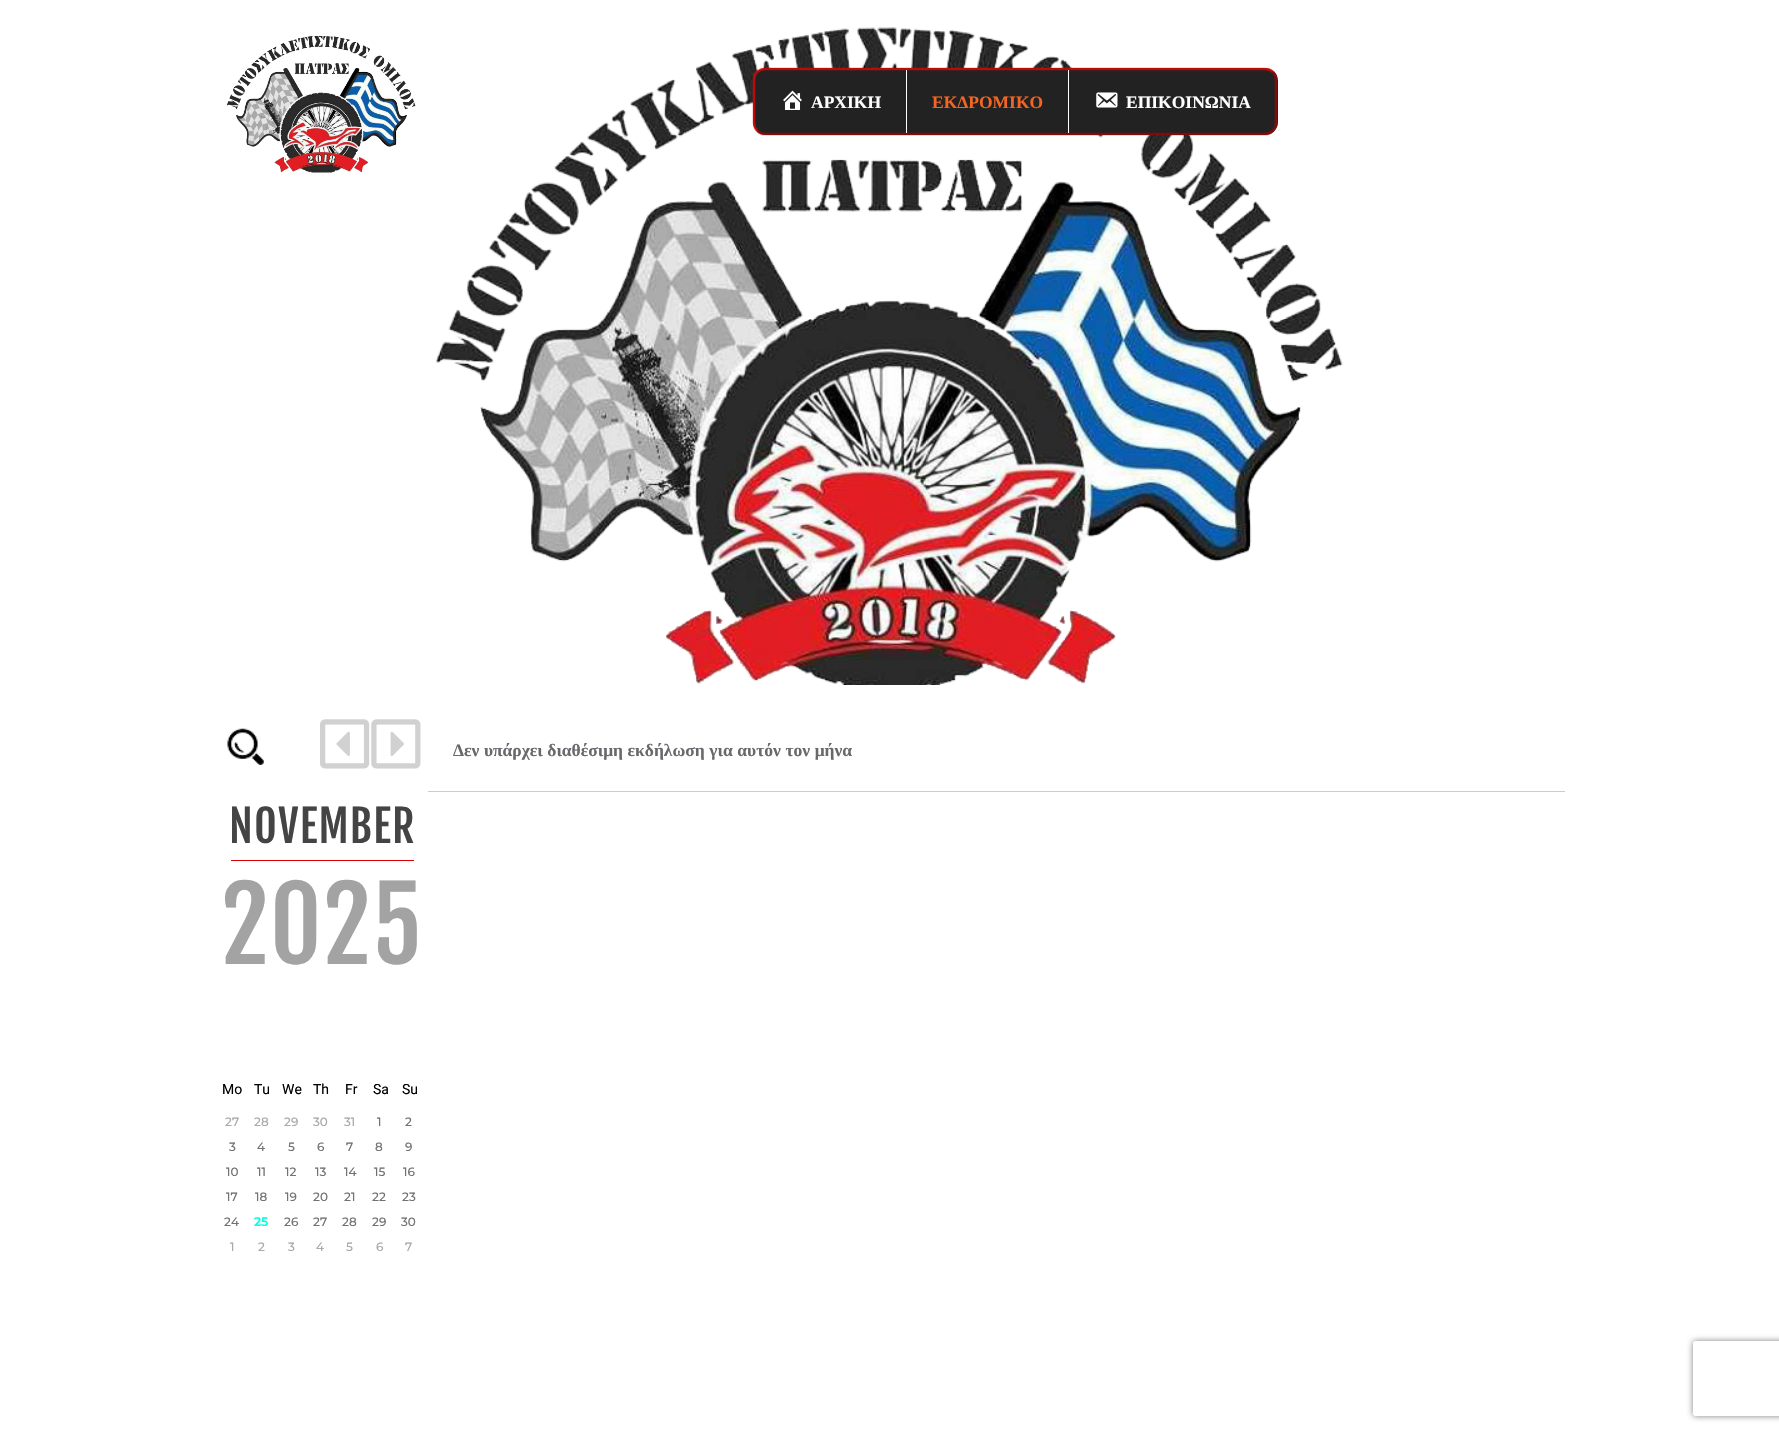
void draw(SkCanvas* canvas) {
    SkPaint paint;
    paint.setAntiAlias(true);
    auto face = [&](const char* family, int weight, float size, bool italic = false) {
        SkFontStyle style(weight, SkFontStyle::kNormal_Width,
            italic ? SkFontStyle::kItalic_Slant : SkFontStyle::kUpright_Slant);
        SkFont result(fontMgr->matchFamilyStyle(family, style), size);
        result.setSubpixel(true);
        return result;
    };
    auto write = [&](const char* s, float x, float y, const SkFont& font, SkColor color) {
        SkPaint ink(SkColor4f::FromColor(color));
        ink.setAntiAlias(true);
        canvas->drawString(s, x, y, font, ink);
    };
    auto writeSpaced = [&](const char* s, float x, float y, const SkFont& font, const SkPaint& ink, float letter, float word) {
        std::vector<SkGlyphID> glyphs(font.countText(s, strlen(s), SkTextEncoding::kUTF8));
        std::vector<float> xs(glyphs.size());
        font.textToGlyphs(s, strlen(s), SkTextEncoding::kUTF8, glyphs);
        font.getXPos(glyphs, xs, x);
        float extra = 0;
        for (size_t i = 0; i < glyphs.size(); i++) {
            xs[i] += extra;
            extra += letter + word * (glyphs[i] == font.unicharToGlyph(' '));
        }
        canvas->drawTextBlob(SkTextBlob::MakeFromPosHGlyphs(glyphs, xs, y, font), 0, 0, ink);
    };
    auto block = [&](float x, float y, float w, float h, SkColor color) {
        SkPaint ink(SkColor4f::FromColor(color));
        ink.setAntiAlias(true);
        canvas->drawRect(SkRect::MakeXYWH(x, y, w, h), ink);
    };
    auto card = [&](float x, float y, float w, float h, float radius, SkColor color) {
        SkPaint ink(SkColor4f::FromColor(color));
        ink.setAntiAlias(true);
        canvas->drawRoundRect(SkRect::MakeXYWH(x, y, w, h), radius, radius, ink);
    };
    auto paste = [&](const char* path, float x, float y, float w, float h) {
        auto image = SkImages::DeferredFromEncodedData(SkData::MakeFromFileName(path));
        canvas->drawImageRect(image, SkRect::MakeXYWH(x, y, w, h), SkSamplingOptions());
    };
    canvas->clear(SK_ColorWHITE);
    paste("pic1.png", 226, 35, 190, 138);
    paste("pic4.png", 436, 27, 907, 658);
    card(753, 68, 525, 67, 13, SkColorSetRGB(34, 34, 34));
    paint.setStyle(SkPaint::kStroke_Style);
    paint.setStrokeWidth(2.5f);
    paint.setColor(SkColorSetARGB(171, 170, 0, 0));
    canvas->drawPath(SkPathBuilder().moveTo(1273, 72).cubicTo(1275, 74, 1276, 77, 1276, 80).lineTo(1276, 122.5f).cubicTo(1276, 125.5f, 1275, 128.5f, 1273, 130.5f).cubicTo(1271, 132.5f, 1268, 134, 1265, 134).lineTo(765, 134).cubicTo(762, 134, 759, 132.5f, 757, 130.5f).detach(), paint);
    paint.setColor(SkColorSetARGB(171, 255, 0, 0));
    canvas->drawPath(SkPathBuilder().moveTo(757, 130.5f).cubicTo(755, 128.5f, 754, 125.5f, 754, 122.5f).lineTo(754, 80).cubicTo(754, 77, 755, 74, 757, 72).cubicTo(759, 70, 762, 69, 765, 69).lineTo(1265, 69).cubicTo(1268, 69, 1271, 70, 1273, 72).detach(), paint);
    block(906, 70, 1, 63, SK_ColorWHITE);
    paste("pic2.png", 783, 90, 19, 20);
    auto kFont1 = face("Liberation Serif", 700, 17.5f);
    write("ΑΡΧΙΚΗ", 811, 108, kFont1, SK_ColorWHITE);
    block(1068, 70, 1, 63, SK_ColorWHITE);
    write("ΕΚΔΡΟΜΙΚΟ", 932, 108, kFont1, SkColorSetRGB(242, 101, 34));
    paste("pic3.png", 1096, 92, 22, 16);
    write("ΕΠΙΚΟΙΝΩΝΙΑ", 1126, 108, kFont1, SK_ColorWHITE);
    block(428, 791, 1137, 1, SkColorSetRGB(204, 204, 204));
    paint.setStyle(SkPaint::kFill_Style);
    paint.setColor(SkColorSetRGB(104, 104, 109));
    writeSpaced("Δεν υπάρχει διαθέσιμη εκδήλωση για αυτόν τον μήνα", 453, 756, kFont1, paint, 0, 0.25f);
    paste("pic5.png", 227, 728, 37, 37);
    paste("pic6.png", 320, 719, 50, 50);
    paste("pic7.png", 371, 719, 50, 50);
    auto kFont2 = face("Fjalla One", 400, 43.75f);
    paint.setColor(SkColorSetRGB(68, 68, 68));
    writeSpaced("NOVEMBER", 229, 843, kFont2, paint, 1.25f, 0);
    block(231, 860, 183, 1, SkColorSetRGB(218, 0, 0));
    auto kFont3 = face("Fjalla One", 400, 100);
    paint.setColor(SkColorSetRGB(163, 163, 163));
    writeSpaced("2025", 221, 964, kFont3, paint, 1.25f, 0);
    auto kFont4 = face("Roboto", 400, 14);
    write("Mo", 222, 1094, kFont4, SK_ColorBLACK);
    write("Tu", 254, 1094, kFont4, SK_ColorBLACK);
    write("We", 282, 1094, kFont4, SK_ColorBLACK);
    write("Th", 313, 1094, kFont4, SK_ColorBLACK);
    write("Fr", 345, 1094, kFont4, SK_ColorBLACK);
    write("Sa", 373, 1094, kFont4, SK_ColorBLACK);
    write("Su", 402, 1094, kFont4, SK_ColorBLACK);
    auto kFont5 = face("Montserrat", 500, 12);
    write("27", 225, 1126, kFont5, SkColorSetRGB(170, 170, 170));
    write("28", 254, 1126, kFont5, SkColorSetRGB(170, 170, 170));
    write("29", 284, 1126, kFont5, SkColorSetRGB(170, 170, 170));
    write("30", 313, 1126, kFont5, SkColorSetRGB(170, 170, 170));
    write("31", 344, 1126, kFont5, SkColorSetRGB(170, 170, 170));
    write("1", 377, 1126, kFont5, SkColorSetRGB(112, 114, 117));
    write("2", 405, 1126, kFont5, SkColorSetRGB(112, 114, 117));
    write("3", 229, 1151, kFont5, SkColorSetRGB(112, 114, 117));
    write("4", 257, 1151, kFont5, SkColorSetRGB(112, 114, 117));
    write("5", 288, 1151, kFont5, SkColorSetRGB(112, 114, 117));
    write("6", 317, 1151, kFont5, SkColorSetRGB(112, 114, 117));
    write("7", 346, 1151, kFont5, SkColorSetRGB(112, 114, 117));
    write("8", 375, 1151, kFont5, SkColorSetRGB(112, 114, 117));
    write("9", 405, 1151, kFont5, SkColorSetRGB(112, 114, 117));
    write("10", 226, 1176, kFont5, SkColorSetRGB(112, 114, 117));
    write("11", 257, 1176, kFont5, SkColorSetRGB(112, 114, 117));
    write("12", 285, 1176, kFont5, SkColorSetRGB(112, 114, 117));
    write("13", 315, 1176, kFont5, SkColorSetRGB(112, 114, 117));
    write("14", 344, 1176, kFont5, SkColorSetRGB(112, 114, 117));
    write("15", 374, 1176, kFont5, SkColorSetRGB(112, 114, 117));
    write("16", 403, 1176, kFont5, SkColorSetRGB(112, 114, 117));
    write("17", 226, 1201, kFont5, SkColorSetRGB(112, 114, 117));
    write("18", 255, 1201, kFont5, SkColorSetRGB(112, 114, 117));
    write("19", 285, 1201, kFont5, SkColorSetRGB(112, 114, 117));
    write("20", 313, 1201, kFont5, SkColorSetRGB(112, 114, 117));
    write("21", 344, 1201, kFont5, SkColorSetRGB(112, 114, 117));
    write("22", 372, 1201, kFont5, SkColorSetRGB(112, 114, 117));
    write("23", 402, 1201, kFont5, SkColorSetRGB(112, 114, 117));
    write("24", 224, 1226, kFont5, SkColorSetRGB(112, 114, 117));
    auto kFont6 = face("Montserrat", 700, 12);
    write("25", 254, 1226, kFont6, SkColorSetRGB(0, 255, 224));
    write("26", 284, 1226, kFont5, SkColorSetRGB(112, 114, 117));
    write("27", 313, 1226, kFont5, SkColorSetRGB(112, 114, 117));
    write("28", 342, 1226, kFont5, SkColorSetRGB(112, 114, 117));
    write("29", 372, 1226, kFont5, SkColorSetRGB(112, 114, 117));
    write("30", 401, 1226, kFont5, SkColorSetRGB(112, 114, 117));
    write("1", 230, 1251, kFont5, SkColorSetRGB(170, 170, 170));
    write("2", 258, 1251, kFont5, SkColorSetRGB(170, 170, 170));
    write("3", 288, 1251, kFont5, SkColorSetRGB(170, 170, 170));
    write("4", 316, 1251, kFont5, SkColorSetRGB(170, 170, 170));
    write("5", 346, 1251, kFont5, SkColorSetRGB(170, 170, 170));
    write("6", 376, 1251, kFont5, SkColorSetRGB(170, 170, 170));
    write("7", 405, 1251, kFont5, SkColorSetRGB(170, 170, 170));
    canvas->save();
    canvas->clipPath(SkPathBuilder(SkPathFillType::kEvenOdd).moveTo(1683, 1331).lineTo(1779, 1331).lineTo(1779, 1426).lineTo(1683, 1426).close().moveTo(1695.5f, 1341).lineTo(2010.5f, 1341).cubicTo(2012, 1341, 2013, 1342, 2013, 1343.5f).lineTo(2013, 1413.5f).cubicTo(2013, 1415, 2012, 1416, 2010.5f, 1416).lineTo(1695.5f, 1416).cubicTo(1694, 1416, 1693, 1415, 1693, 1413.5f).lineTo(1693, 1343.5f).cubicTo(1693, 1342, 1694, 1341, 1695.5f, 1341).close().detach(), true);
    paint.setColor(SkColorSetRGB(128, 128, 128));
    paint.setMaskFilter(SkMaskFilter::MakeBlur(kNormal_SkBlurStyle, 3));
    canvas->drawRoundRect(SkRect::MakeXYWH(1693, 1341, 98, 75), 2.5f, 2.5f, paint);
    paint.setMaskFilter(nullptr);
    canvas->restore();
}
